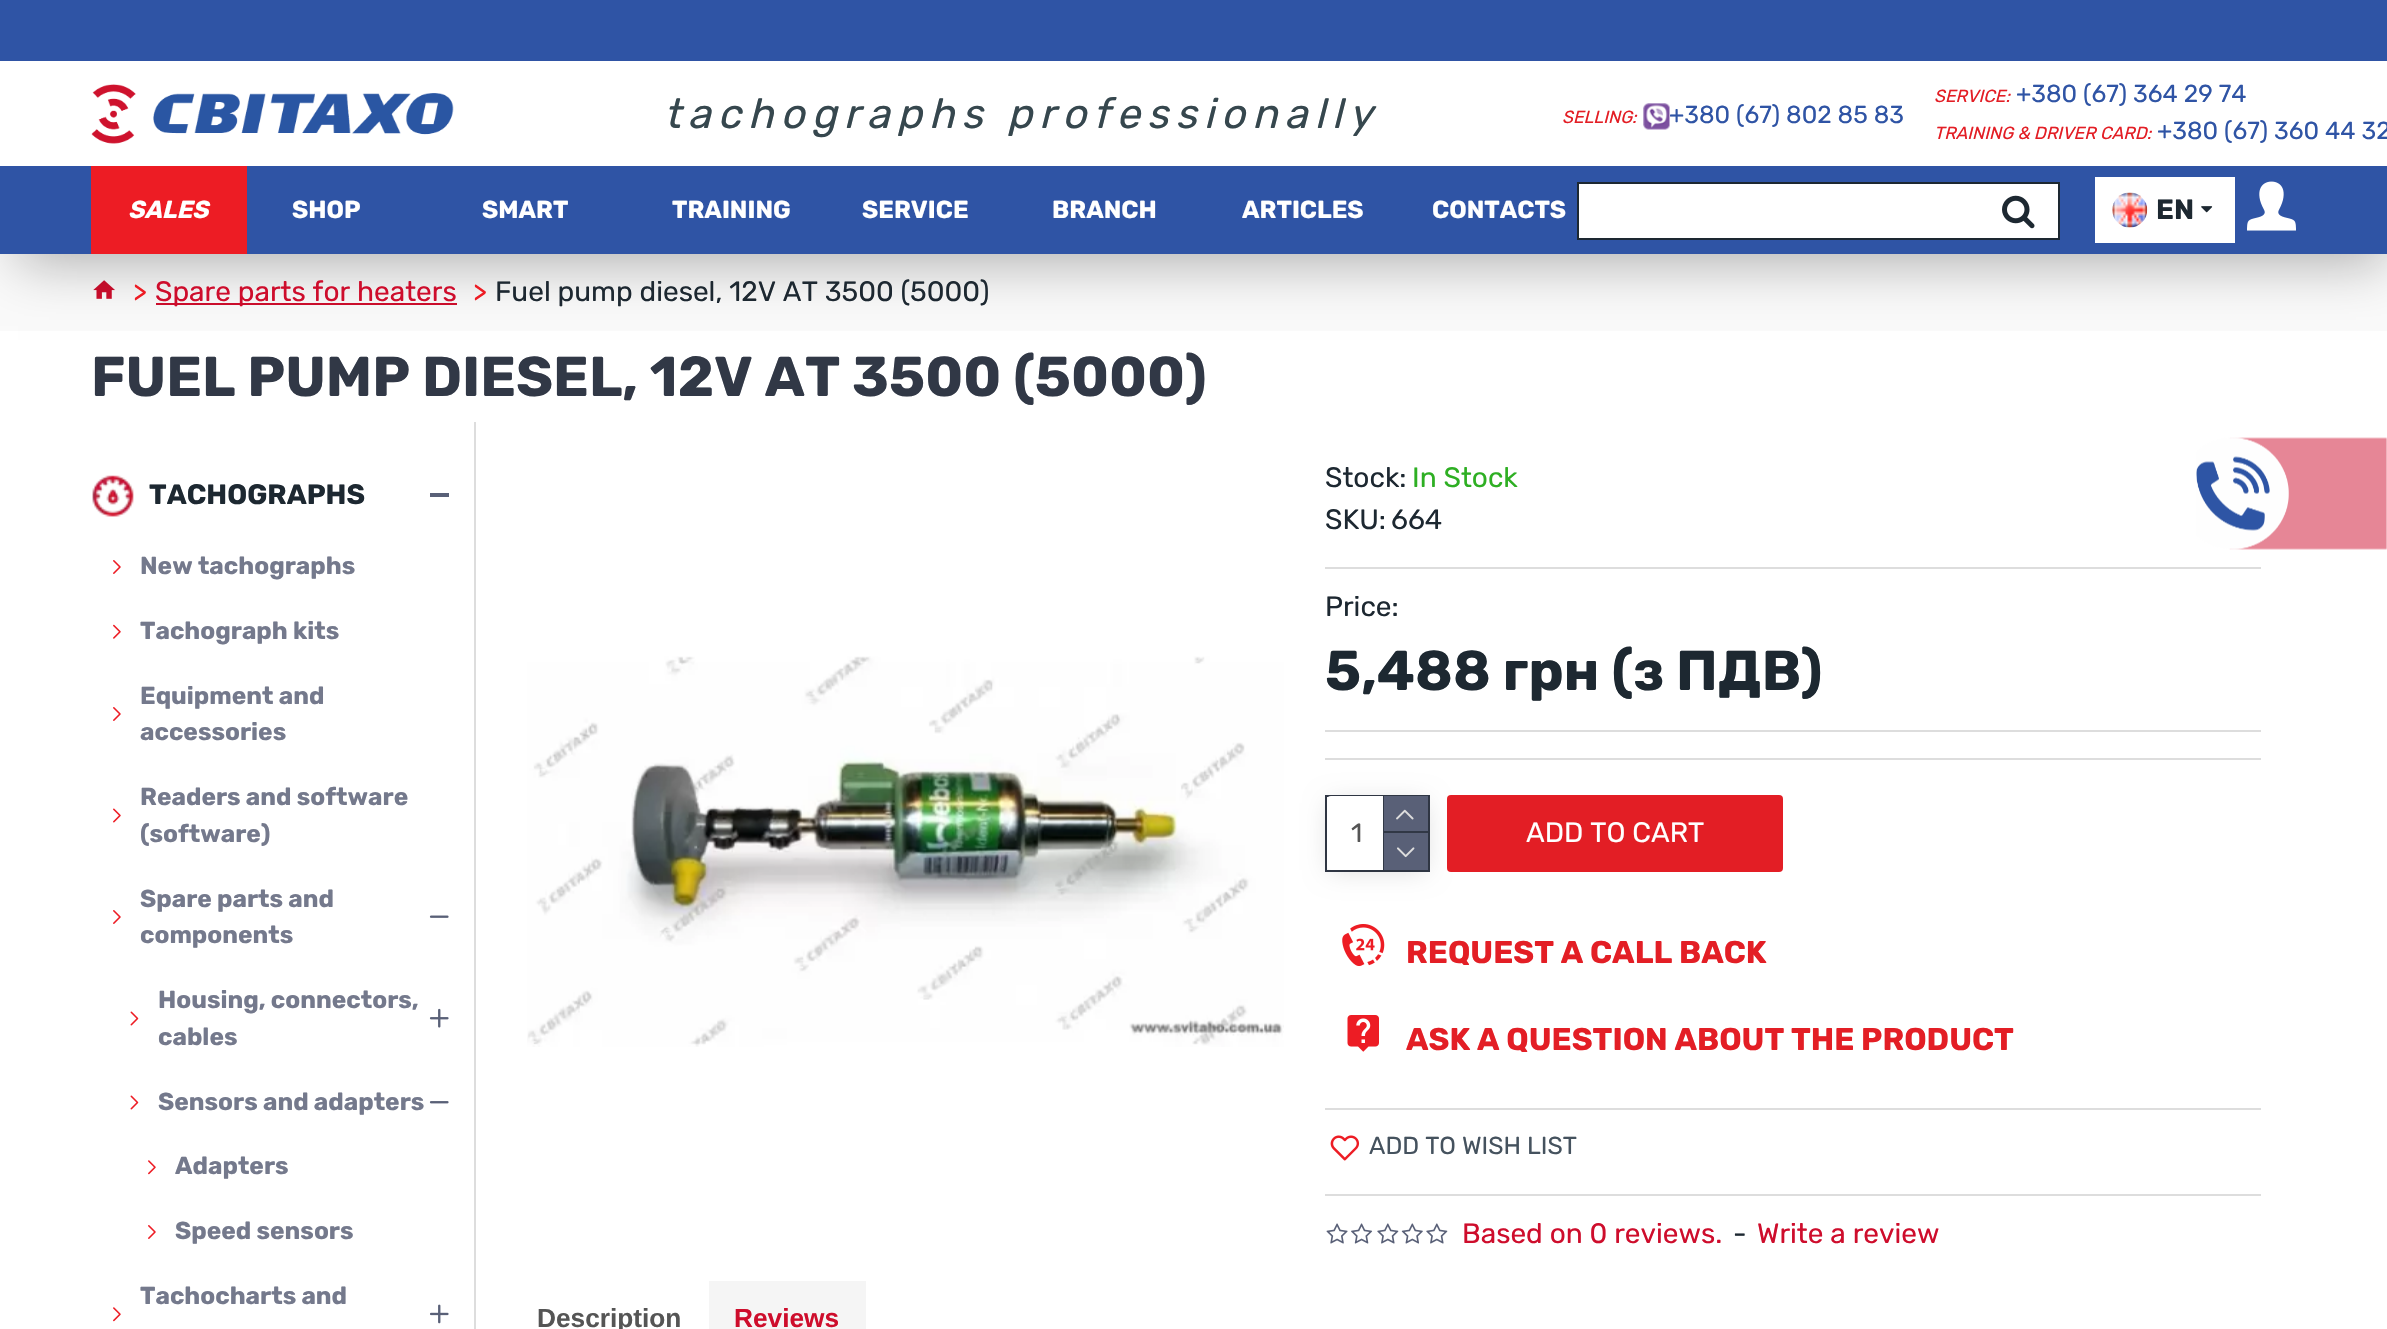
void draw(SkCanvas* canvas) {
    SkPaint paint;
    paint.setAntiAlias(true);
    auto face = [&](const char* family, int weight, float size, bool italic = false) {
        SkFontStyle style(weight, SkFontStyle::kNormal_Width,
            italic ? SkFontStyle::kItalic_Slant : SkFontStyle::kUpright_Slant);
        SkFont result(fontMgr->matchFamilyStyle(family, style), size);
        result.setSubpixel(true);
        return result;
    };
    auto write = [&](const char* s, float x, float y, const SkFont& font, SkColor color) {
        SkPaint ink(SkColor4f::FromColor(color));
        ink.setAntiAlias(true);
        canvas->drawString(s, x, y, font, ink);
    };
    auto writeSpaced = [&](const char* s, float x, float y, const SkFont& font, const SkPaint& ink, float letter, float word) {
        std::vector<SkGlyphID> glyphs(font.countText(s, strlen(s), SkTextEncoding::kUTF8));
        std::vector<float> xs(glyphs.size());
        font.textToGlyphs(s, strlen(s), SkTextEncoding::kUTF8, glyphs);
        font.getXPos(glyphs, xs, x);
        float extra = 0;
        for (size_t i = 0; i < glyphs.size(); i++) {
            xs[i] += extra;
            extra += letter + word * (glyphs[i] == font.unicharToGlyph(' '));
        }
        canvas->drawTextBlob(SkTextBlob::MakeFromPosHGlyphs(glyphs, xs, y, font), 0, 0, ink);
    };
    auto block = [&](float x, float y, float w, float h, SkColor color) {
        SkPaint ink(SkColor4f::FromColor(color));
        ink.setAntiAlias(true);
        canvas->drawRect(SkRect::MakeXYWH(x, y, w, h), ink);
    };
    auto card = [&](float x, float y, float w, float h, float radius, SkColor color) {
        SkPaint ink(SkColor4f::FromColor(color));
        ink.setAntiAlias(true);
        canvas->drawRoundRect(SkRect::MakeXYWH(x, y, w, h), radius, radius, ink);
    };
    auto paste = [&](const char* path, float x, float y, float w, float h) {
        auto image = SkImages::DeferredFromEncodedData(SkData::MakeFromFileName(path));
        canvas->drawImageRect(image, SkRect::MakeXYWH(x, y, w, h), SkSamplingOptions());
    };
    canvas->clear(SK_ColorWHITE);
    block(0, 254, 2387, 77, SkColorSetRGB(250, 250, 250));
    paste("pic7.png", 93, 280, 22, 19);
    block(156, 303, 301, 2, SkColorSetRGB(206, 13, 44));
    paint.setColor(SkColorSetARGB(77, 0, 0, 0));
    paint.setMaskFilter(SkMaskFilter::MakeBlur(kNormal_SkBlurStyle, 26));
    canvas->drawRect(SkRect::MakeXYWH(18, 26, 2369, 237), paint);
    paint.setMaskFilter(nullptr);
    block(0, 61, 2387, 105, SK_ColorWHITE);
    block(0, 0, 2387, 61, SkColorSetRGB(47, 84, 165));
    paste("pic1.png", 91, 84, 363, 60);
    auto kFont1 = face("Rubik", 400, 42, true);
    paint.setColor(SkColorSetRGB(54, 71, 78));
    writeSpaced("tachographs professionally", 664, 128, kFont1, paint, 7, 0);
    auto kFont2 = face("Rubik", 400, 17.5f, true);
    write("SELLING:", 1562, 123, kFont2, SkColorSetRGB(227, 30, 37));
    paste("pic2.png", 1643, 103, 27, 27);
    auto kFont3 = face("Rubik", 400, 24.5f);
    write("+380 (67) 802 85 83", 1669, 123, kFont3, SkColorSetRGB(47, 84, 165));
    write("SERVICE:", 1934, 102, kFont2, SkColorSetRGB(227, 30, 37));
    write("+380 (67) 364 29 74", 2016, 102, kFont3, SkColorSetRGB(47, 84, 165));
    write("TRAINING & DRIVER CARD:", 1934, 139, kFont2, SkColorSetRGB(227, 30, 37));
    write("+380 (67) 360 44 32", 2157, 139, kFont3, SkColorSetRGB(47, 84, 165));
    block(0, 166, 2387, 88, SkColorSetRGB(47, 84, 165));
    block(91, 166, 156, 88, SkColorSetRGB(237, 28, 36));
    auto kFont4 = face("Rubik", 700, 24.5f, true);
    write("SALES", 128, 218, kFont4, SK_ColorWHITE);
    auto kFont5 = face("Rubik", 700, 24.5f);
    write("SHOP", 292, 218, kFont5, SK_ColorWHITE);
    write("SMART", 482, 218, kFont5, SK_ColorWHITE);
    write("TRAINING", 672, 218, kFont5, SK_ColorWHITE);
    write("SERVICE", 862, 218, kFont5, SK_ColorWHITE);
    write("BRANCH", 1052, 218, kFont5, SK_ColorWHITE);
    write("ARTICLES", 1242, 218, kFont5, SK_ColorWHITE);
    write("CONTACTS", 1432, 218, kFont5, SK_ColorWHITE);
    paint.setStyle(SkPaint::kStroke_Style);
    paint.setStrokeWidth(2);
    paint.setColor(SkColorSetRGB(29, 40, 49));
    canvas->drawRect(SkRect::MakeXYWH(1578, 183, 481, 56), paint);
    block(1579, 184, 479, 54, SK_ColorWHITE);
    paste("pic3.png", 2002, 195, 33, 34);
    block(2095, 177, 140, 66, SK_ColorWHITE);
    paste("pic4.png", 2112, 192, 36, 36);
    auto kFont6 = face("Rubik", 700, 28);
    write("EN", 2156, 219, kFont6, SkColorSetRGB(29, 40, 49));
    paste("pic5.png", 2201, 206, 12, 7);
    paste("pic6.png", 2247, 181, 49, 50);
    auto kFont7 = face("Rubik", 400, 28);
    write(">", 133, 301, kFont7, SkColorSetRGB(237, 28, 36));
    write("Spare parts for heaters", 155, 301, kFont7, SkColorSetRGB(206, 13, 44));
    write(">", 473, 301, kFont7, SkColorSetRGB(237, 28, 36));
    write("Fuel pump diesel, 12V AT 3500 (5000)", 495, 301, kFont7, SkColorSetRGB(29, 40, 49));
    auto kFont8 = face("Rubik", 700, 56);
    write("FUEL PUMP DIESEL, 12V AT 3500 (5000)", 91, 396, kFont8, SkColorSetRGB(49, 56, 70));
    block(474, 422, 2, 907, SkColorSetRGB(221, 221, 221));
    paste("pic8.png", 92, 475, 42, 42);
    write("TACHOGRAPHS", 149, 504, kFont6, SkColorSetRGB(29, 40, 49));
    block(430, 493, 19, 4, SkColorSetRGB(89, 96, 119));
    paste("pic9.png", 113, 560, 8, 14);
    write("New tachographs", 140, 574, kFont5, SkColorSetRGB(116, 121, 140));
    paste("pic10.png", 113, 624, 8, 15);
    write("Tachograph kits", 140, 639, kFont5, SkColorSetRGB(116, 121, 140));
    paste("pic9.png", 113, 707, 8, 14);
    write("Equipment and", 140, 704, kFont5, SkColorSetRGB(116, 121, 140));
    write("accessories", 140, 740, kFont5, SkColorSetRGB(116, 121, 140));
    paste("pic11.png", 113, 808, 8, 15);
    write("Readers and software", 140, 805, kFont5, SkColorSetRGB(116, 121, 140));
    write("(software)", 140, 842, kFont5, SkColorSetRGB(116, 121, 140));
    paste("pic9.png", 113, 910, 8, 14);
    write("Spare parts and", 140, 907, kFont5, SkColorSetRGB(116, 121, 140));
    write("components", 140, 943, kFont5, SkColorSetRGB(116, 121, 140));
    paste("pic12.png", 429, 915, 20, 3);
    paste("pic13.png", 130, 1011, 9, 15);
    write("Housing, connectors,", 158, 1008, kFont5, SkColorSetRGB(116, 121, 140));
    write("cables", 158, 1045, kFont5, SkColorSetRGB(116, 121, 140));
    paste("pic14.png", 429, 1008, 20, 20);
    paste("pic13.png", 130, 1095, 9, 15);
    write("Sensors and adapters", 158, 1110, kFont5, SkColorSetRGB(116, 121, 140));
    paste("pic15.png", 429, 1101, 20, 3);
    paste("pic16.png", 148, 1160, 8, 15);
    write("Adapters", 175, 1174, kFont5, SkColorSetRGB(116, 121, 140));
    paste("pic9.png", 148, 1225, 8, 14);
    write("Speed sensors", 175, 1239, kFont5, SkColorSetRGB(116, 121, 140));
    write("Tachocharts and", 140, 1304, kFont5, SkColorSetRGB(116, 121, 140));
    paste("pic16.png", 113, 1307, 8, 15);
    paste("pic17.png", 430, 1304, 19, 20);
    paste("pic18.png", 527, 656, 757, 391);
    write("Stock:", 1325, 487, kFont7, SkColorSetRGB(29, 40, 49));
    write("In Stock", 1412, 487, kFont7, SkColorSetRGB(46, 175, 35));
    write("SKU:", 1325, 529, kFont7, SkColorSetRGB(29, 40, 49));
    write("664", 1391, 529, kFont7, SkColorSetRGB(29, 40, 49));
    block(1325, 567, 936, 2, SkColorSetRGB(221, 221, 221));
    block(1325, 730, 936, 2, SkColorSetRGB(221, 221, 221));
    write("Price:", 1325, 616, kFont7, SkColorSetRGB(29, 40, 49));
    write("5,488 грн (з ПДВ)", 1325, 690, kFont8, SkColorSetRGB(29, 40, 49));
    block(1325, 758, 936, 2, SkColorSetRGB(221, 221, 221));
    paint.setColor(SkColorSetRGB(49, 56, 70));
    canvas->drawRect(SkRect::MakeXYWH(1326, 796, 103, 75), paint);
    paint.setStyle(SkPaint::kFill_Style);
    paint.setColor(SkColorSetARGB(38, 0, 0, 0));
    paint.setMaskFilter(SkMaskFilter::MakeBlur(kNormal_SkBlurStyle, 13));
    canvas->drawRect(SkRect::MakeXYWH(1330, 803, 95, 67), paint);
    paint.setMaskFilter(nullptr);
    card(1327, 796, 101, 74, 4, SK_ColorWHITE);
    auto kFont9 = face("Rubik", 400, 26.25f);
    write("1", 1351, 842, kFont9, SkColorSetRGB(85, 85, 85));
    block(1383, 796, 1, 74, SkColorSetRGB(49, 56, 70));
    block(1384, 796, 44, 35, SkColorSetRGB(89, 96, 119));
    block(1384, 831, 44, 2, SkColorSetRGB(49, 56, 70));
    paste("pic19.png", 1396, 809, 18, 11);
    block(1384, 833, 44, 37, SkColorSetRGB(89, 96, 119));
    paste("pic20.png", 1397, 847, 18, 11);
    card(1447, 795, 336, 77, 4, SkColorSetRGB(227, 30, 37));
    write("ADD TO CART", 1526, 842, kFont7, SK_ColorWHITE);
    paste("pic21.png", 1342, 924, 43, 43);
    auto kFont10 = face("Rubik", 700, 31.5f);
    write("REQUEST A CALL BACK", 1406, 963, kFont10, SkColorSetRGB(227, 30, 37));
    paste("pic22.png", 1347, 1015, 32, 37);
    write("ASK A QUESTION ABOUT THE PRODUCT", 1406, 1050, kFont10, SkColorSetRGB(227, 30, 37));
    block(1325, 1108, 936, 2, SkColorSetRGB(221, 221, 221));
    paste("pic23.png", 1330, 1135, 30, 26);
    write("ADD TO WISH LIST", 1369, 1154, kFont3, SkColorSetRGB(69, 82, 94));
    block(1325, 1194, 936, 2, SkColorSetRGB(221, 221, 221));
    paste("pic24.png", 1326, 1223, 22, 21);
    paste("pic25.png", 1351, 1223, 22, 21);
    paste("pic26.png", 1377, 1223, 22, 21);
    paste("pic27.png", 1401, 1223, 22, 21);
    paste("pic26.png", 1426, 1223, 22, 21);
    write("Based on 0 reviews.", 1462, 1243, kFont7, SkColorSetRGB(206, 13, 44));
    write("-", 1733, 1243, kFont7, SkColorSetRGB(29, 40, 49));
    write("Write a review", 1757, 1243, kFont7, SkColorSetRGB(206, 13, 44));
    auto kFont11 = face("Liberation Sans", 700, 26.25f);
    write("Description", 537, 1327, kFont11, SkColorSetRGB(85, 85, 85));
    block(709, 1281, 157, 48, SkColorSetRGB(245, 245, 245));
    write("Reviews", 734, 1327, kFont11, SkColorSetRGB(206, 13, 44));
    paste("pic28.png", 2196, 437, 191, 113);
}
